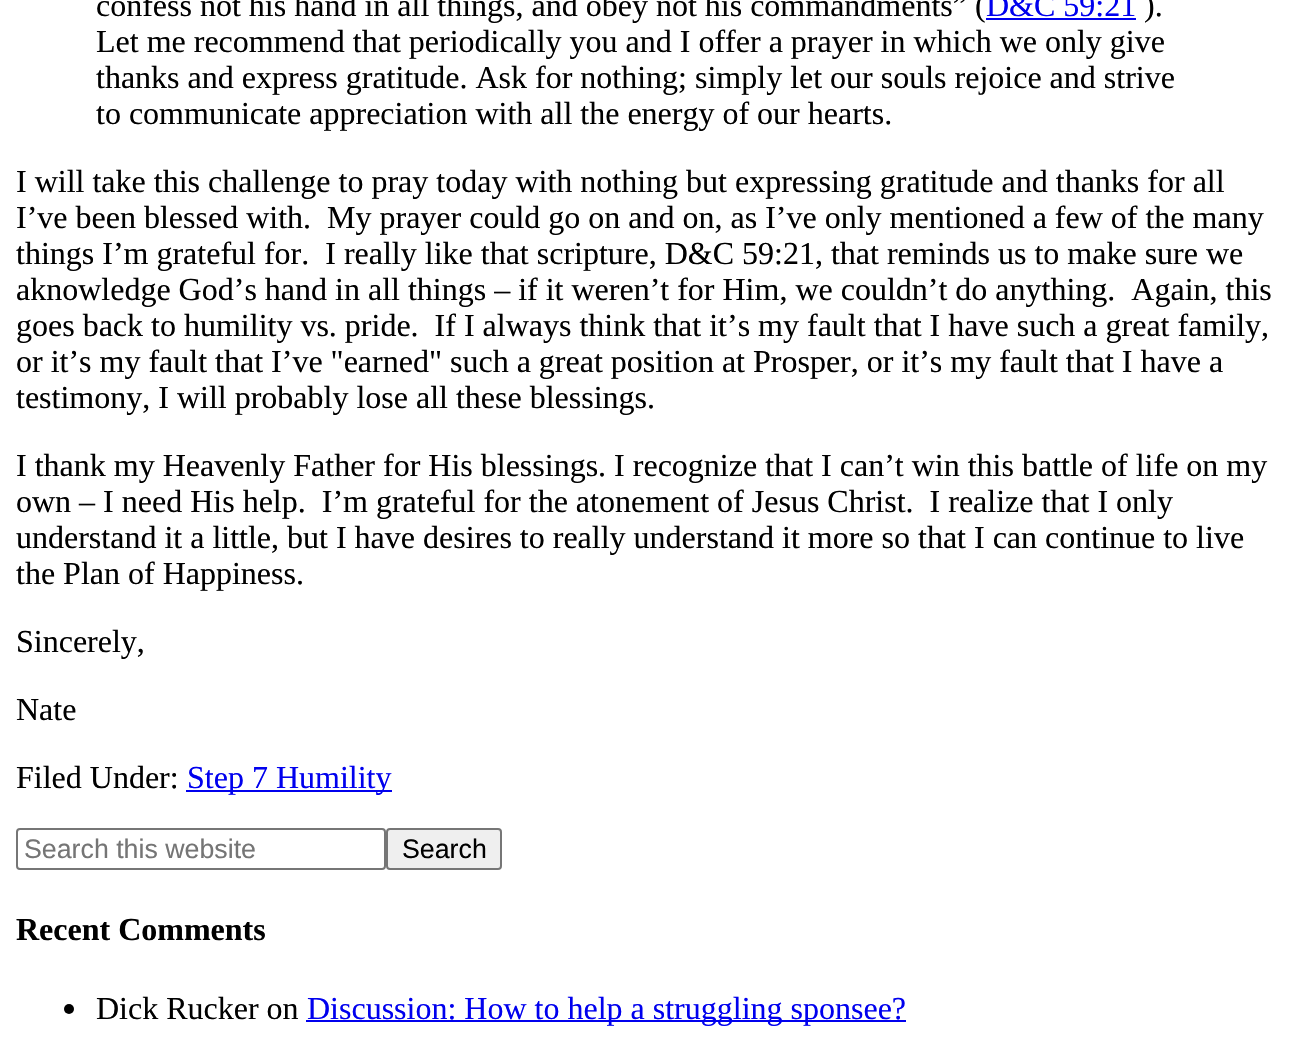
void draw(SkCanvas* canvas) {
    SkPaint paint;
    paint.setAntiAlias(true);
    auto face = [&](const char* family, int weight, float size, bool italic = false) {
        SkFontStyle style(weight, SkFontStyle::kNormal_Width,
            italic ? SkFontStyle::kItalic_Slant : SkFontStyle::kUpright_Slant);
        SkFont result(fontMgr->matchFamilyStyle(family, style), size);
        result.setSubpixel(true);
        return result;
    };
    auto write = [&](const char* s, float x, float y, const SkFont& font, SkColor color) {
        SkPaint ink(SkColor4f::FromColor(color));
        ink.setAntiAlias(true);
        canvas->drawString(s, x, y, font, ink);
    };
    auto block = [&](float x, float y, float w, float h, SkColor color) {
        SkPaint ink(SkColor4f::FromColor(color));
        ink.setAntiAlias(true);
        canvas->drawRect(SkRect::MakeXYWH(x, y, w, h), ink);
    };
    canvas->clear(SK_ColorWHITE);
    auto kFont1 = face("Liberation Serif", 400, 32);
    write("confess not his hand in all things, and obey not his commandments” (", 96, 16, kFont1, SK_ColorBLACK);
    write("D&C 59:21", 986, 16, kFont1, SkColorSetRGB(0, 0, 238));
    block(986, 18, 150, 2, SkColorSetRGB(0, 0, 238));
    write(").", 1144, 16, kFont1, SK_ColorBLACK);
    write("Let me recommend that periodically you and I offer a prayer in which we only give", 96, 52, kFont1, SK_ColorBLACK);
    write("thanks and express gratitude. Ask for nothing; simply let our souls rejoice and strive", 96, 88, kFont1, SK_ColorBLACK);
    write("to communicate appreciation with all the energy of our hearts.", 96, 124, kFont1, SK_ColorBLACK);
    write("I will take this challenge to pray today with nothing but expressing gratitude and thanks for all", 16, 192, kFont1, SK_ColorBLACK);
    write("I’ve been blessed with.  My prayer could go on and on, as I’ve only mentioned a few of the many", 16, 228, kFont1, SK_ColorBLACK);
    write("things I’m grateful for.  I really like that scripture, D&C 59:21, that reminds us to make sure we", 16, 264, kFont1, SK_ColorBLACK);
    write("aknowledge God’s hand in all things – if it weren’t for Him, we couldn’t do anything.  Again, this", 16, 300, kFont1, SK_ColorBLACK);
    write("goes back to humility vs. pride.  If I always think that it’s my fault that I have such a great family,", 16, 336, kFont1, SK_ColorBLACK);
    write("or it’s my fault that I’ve \"earned\" such a great position at Prosper, or it’s my fault that I have a", 16, 372, kFont1, SK_ColorBLACK);
    write("testimony, I will probably lose all these blessings.", 16, 408, kFont1, SK_ColorBLACK);
    write("I thank my Heavenly Father for His blessings. I recognize that I can’t win this battle of life on my", 16, 476, kFont1, SK_ColorBLACK);
    write("own – I need His help.  I’m grateful for the atonement of Jesus Christ.  I realize that I only", 16, 512, kFont1, SK_ColorBLACK);
    write("understand it a little, but I have desires to really understand it more so that I can continue to live", 16, 548, kFont1, SK_ColorBLACK);
    write("the Plan of Happiness.", 16, 584, kFont1, SK_ColorBLACK);
    write("Sincerely,", 16, 652, kFont1, SK_ColorBLACK);
    write("Nate", 16, 720, kFont1, SK_ColorBLACK);
    write("Filed Under:", 16, 788, kFont1, SK_ColorBLACK);
    block(186, 790, 206, 2, SkColorSetRGB(0, 0, 238));
    write("Step 7 Humility", 187, 788, kFont1, SkColorSetRGB(0, 0, 238));
    paint.setStyle(SkPaint::kStroke_Style);
    paint.setStrokeWidth(2);
    paint.setColor(SkColorSetRGB(118, 118, 118));
    canvas->drawRoundRect(SkRect::MakeXYWH(17, 829, 368, 40), 3, 3, paint);
    auto kFont2 = face("Liberation Sans", 400, 26.75f);
    write("Search this website", 24, 858, kFont2, SkColorSetRGB(117, 117, 117));
    paint.setStyle(SkPaint::kFill_Style);
    paint.setColor(SkColorSetRGB(239, 239, 239));
    canvas->drawRoundRect(SkRect::MakeXYWH(387, 829, 114, 40), 3, 3, paint);
    paint.setStyle(SkPaint::kStroke_Style);
    paint.setColor(SkColorSetRGB(118, 118, 118));
    canvas->drawRoundRect(SkRect::MakeXYWH(387, 829, 114, 40), 3, 3, paint);
    write("Search", 402, 858, kFont2, SK_ColorBLACK);
    auto kFont3 = face("Liberation Serif", 700, 32);
    write("Recent Comments", 16, 940, kFont3, SK_ColorBLACK);
    paint.setStyle(SkPaint::kFill_Style);
    paint.setColor(SK_ColorBLACK);
    canvas->drawCircle(69, 1009, 5, paint);
    write("Dick Rucker on", 96, 1019, kFont1, SK_ColorBLACK);
    block(306, 1020, 600, 2, SkColorSetRGB(0, 0, 238));
    write("Discussion: How to help a struggling sponsee?", 307, 1019, kFont1, SkColorSetRGB(0, 0, 238));
}
